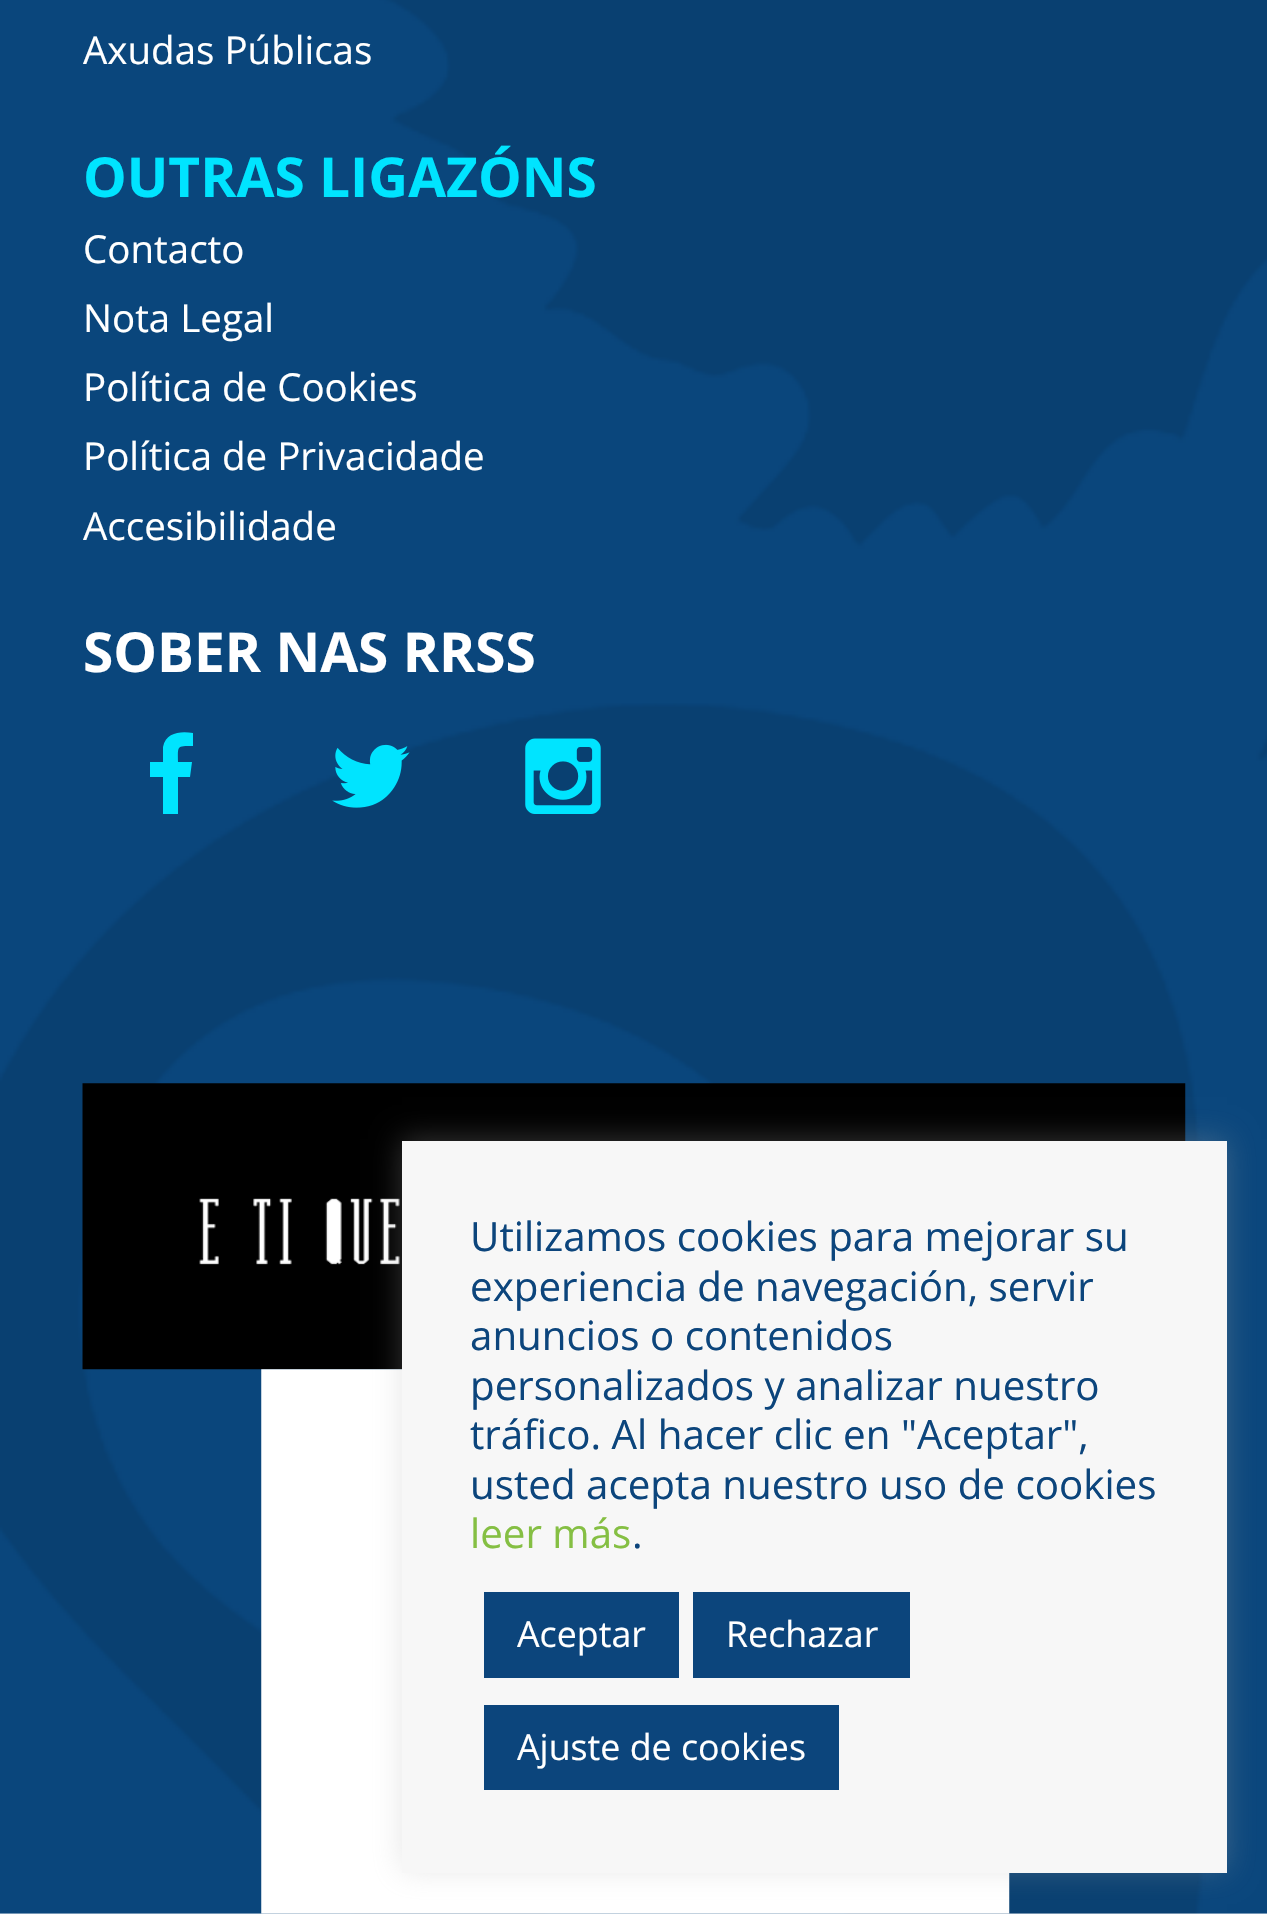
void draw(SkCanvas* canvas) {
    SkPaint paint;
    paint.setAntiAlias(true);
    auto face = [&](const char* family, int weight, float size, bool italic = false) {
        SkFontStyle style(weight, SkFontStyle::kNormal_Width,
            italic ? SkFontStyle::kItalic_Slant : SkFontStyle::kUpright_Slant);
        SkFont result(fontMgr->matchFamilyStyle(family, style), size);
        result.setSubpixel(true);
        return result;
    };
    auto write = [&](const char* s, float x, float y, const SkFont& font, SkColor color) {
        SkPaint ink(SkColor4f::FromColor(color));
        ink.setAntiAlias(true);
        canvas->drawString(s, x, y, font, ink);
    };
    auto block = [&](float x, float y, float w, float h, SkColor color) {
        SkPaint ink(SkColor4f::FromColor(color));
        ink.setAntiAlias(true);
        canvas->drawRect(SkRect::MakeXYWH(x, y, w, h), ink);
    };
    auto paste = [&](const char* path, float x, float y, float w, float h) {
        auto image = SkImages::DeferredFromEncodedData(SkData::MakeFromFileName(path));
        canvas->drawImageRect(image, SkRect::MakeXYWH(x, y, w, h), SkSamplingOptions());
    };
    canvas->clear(SK_ColorWHITE);
    paste("pic1.png", 0, 0, 1267, 1914);
    auto kFont1 = face("Open Sans", 400, 38.5f);
    write("Axudas Públicas", 83, 64, kFont1, SK_ColorWHITE);
    auto kFont2 = face("Open Sans", 700, 55);
    write("OUTRAS LIGAZÓNS", 83, 197, kFont2, SkColorSetRGB(0, 228, 255));
    write("Contacto", 83, 263, kFont1, SK_ColorWHITE);
    write("Nota Legal", 83, 332, kFont1, SK_ColorWHITE);
    write("Política de Cookies", 83, 401, kFont1, SK_ColorWHITE);
    write("Política de Privacidade", 83, 470, kFont1, SK_ColorWHITE);
    write("Accesibilidade", 83, 540, kFont1, SK_ColorWHITE);
    write("SOBER NAS RRSS", 83, 672, kFont2, SK_ColorWHITE);
    paint.setColor(SkColorSetRGB(0, 228, 255));
    canvas->drawPath(SkPathBuilder().moveTo(193, 733).lineTo(193, 746).cubicTo(176, 746, 178, 746, 178, 762).lineTo(192, 762).lineTo(190, 777).lineTo(178, 777).lineTo(178, 814).lineTo(163, 814).lineTo(163, 777).lineTo(150, 777).lineTo(150, 762).lineTo(163, 762).lineTo(163, 747).cubicTo(166, 732, 181, 731, 193, 733).close().detach(), paint);
    paste("pic2.png", 332, 744, 78, 64);
    paste("pic3.png", 525, 738, 76, 76);
    paste("pic4.png", 82, 1083, 1104, 287);
    paste("pic5.png", 261, 1369, 749, 545);
    paint.setColor(SkColorSetARGB(77, 172, 171, 171));
    paint.setMaskFilter(SkMaskFilter::MakeBlur(kNormal_SkBlurStyle, 14));
    canvas->drawRect(SkRect::MakeXYWH(402, 1139, 825, 731), paint);
    paint.setMaskFilter(nullptr);
    block(402, 1141, 825, 732, SkColorSetRGB(247, 247, 247));
    auto kFont3 = face("Open Sans", 400, 40.3f);
    write("Utilizamos cookies para mejorar su", 470, 1251, kFont3, SkColorSetRGB(12, 69, 124));
    write("experiencia de navegación, servir", 470, 1301, kFont3, SkColorSetRGB(12, 69, 124));
    write("anuncios o contenidos", 470, 1350, kFont3, SkColorSetRGB(12, 69, 124));
    write("personalizados y analizar nuestro", 470, 1400, kFont3, SkColorSetRGB(12, 69, 124));
    write("tráfico. Al hacer clic en \"Aceptar\",", 470, 1449, kFont3, SkColorSetRGB(12, 69, 124));
    write("usted acepta nuestro uso de cookies", 470, 1499, kFont3, SkColorSetRGB(12, 69, 124));
    write("leer más", 470, 1548, kFont3, SkColorSetRGB(133, 191, 67));
    write(".", 632, 1548, kFont3, SkColorSetRGB(12, 69, 124));
    block(484, 1592, 195, 86, SkColorSetRGB(12, 69, 124));
    auto kFont4 = face("Open Sans", 400, 35.75f);
    write("Aceptar", 517, 1647, kFont4, SK_ColorWHITE);
    block(693, 1592, 217, 86, SkColorSetRGB(12, 69, 124));
    write("Rechazar", 726, 1647, kFont4, SK_ColorWHITE);
    block(484, 1705, 355, 85, SkColorSetRGB(12, 69, 124));
    write("Ajuste de cookies", 517, 1760, kFont4, SK_ColorWHITE);
}
